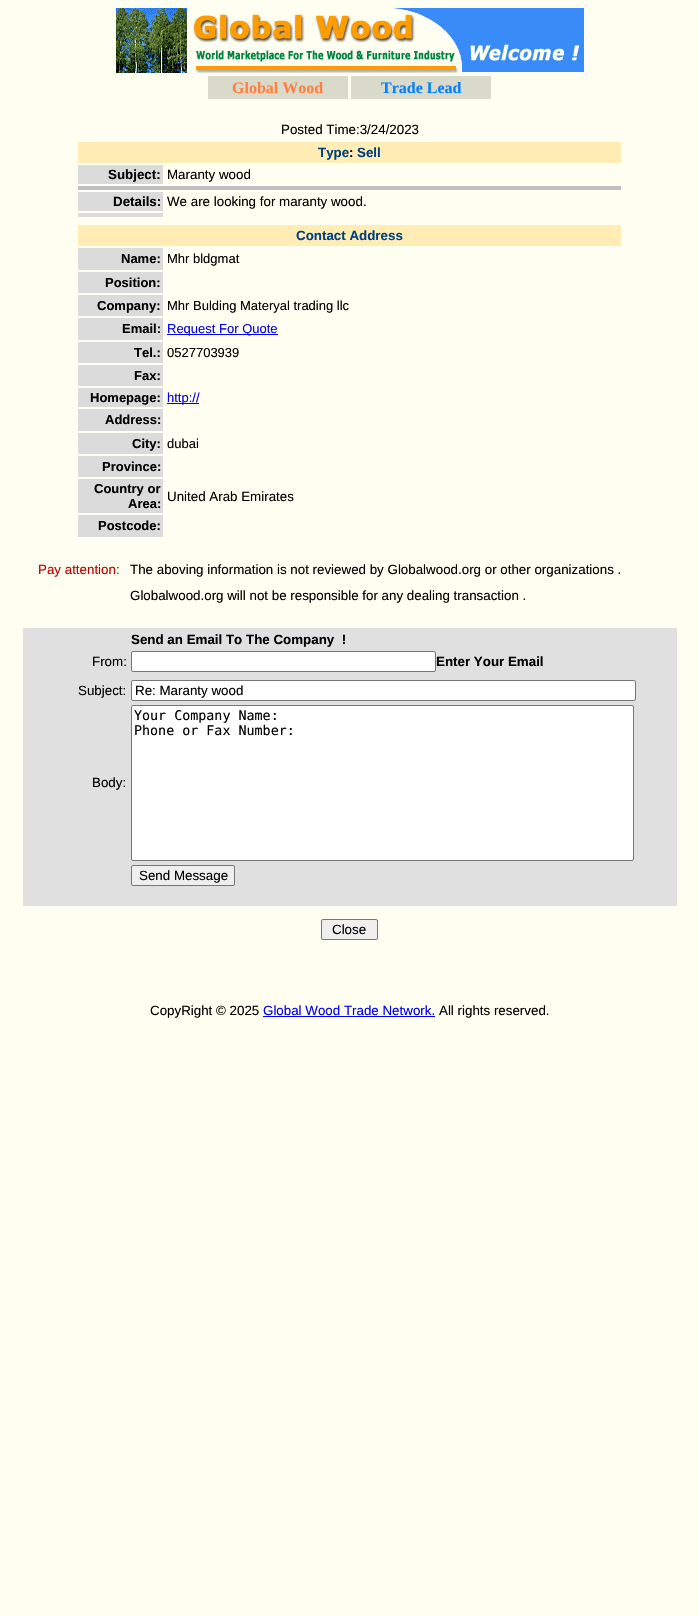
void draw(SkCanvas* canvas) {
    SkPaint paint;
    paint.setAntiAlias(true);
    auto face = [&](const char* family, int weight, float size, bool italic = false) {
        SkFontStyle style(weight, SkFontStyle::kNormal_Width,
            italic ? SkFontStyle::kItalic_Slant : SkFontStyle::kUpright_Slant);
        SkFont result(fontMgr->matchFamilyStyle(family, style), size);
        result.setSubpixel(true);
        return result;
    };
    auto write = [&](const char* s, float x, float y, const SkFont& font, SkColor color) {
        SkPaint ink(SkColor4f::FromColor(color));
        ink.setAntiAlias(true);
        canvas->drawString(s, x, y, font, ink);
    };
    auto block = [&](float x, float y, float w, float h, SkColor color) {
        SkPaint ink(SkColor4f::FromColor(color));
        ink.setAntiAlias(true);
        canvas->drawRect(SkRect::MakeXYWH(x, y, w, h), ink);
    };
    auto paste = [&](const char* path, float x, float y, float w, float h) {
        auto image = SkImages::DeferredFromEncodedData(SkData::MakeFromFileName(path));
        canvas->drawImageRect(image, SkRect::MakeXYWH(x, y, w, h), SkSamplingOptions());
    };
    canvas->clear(SkColorSetRGB(255, 255, 241));
    paste("pic1.png", 116, 8, 468, 65);
    block(208, 76, 140, 23, SkColorSetRGB(218, 218, 202));
    auto kFont1 = face("Liberation Serif", 700, 16);
    write("Global Wood", 232, 93, kFont1, SkColorSetRGB(255, 128, 64));
    block(351, 76, 140, 23, SkColorSetRGB(218, 218, 202));
    write("Trade Lead", 381, 93, kFont1, SkColorSetRGB(0, 128, 255));
    auto kFont2 = face("Liberation Sans", 400, 13.35f);
    write("Posted Time:3/24/2023", 281, 134, kFont2, SK_ColorBLACK);
    block(78, 142, 543, 21, SkColorSetRGB(255, 237, 181));
    auto kFont3 = face("Liberation Sans", 700, 13.35f);
    write("Type", 318, 157, kFont3, SkColorSetRGB(0, 64, 128));
    write(":", 349, 157, kFont3, SK_ColorBLACK);
    write("Sell", 357, 157, kFont3, SkColorSetRGB(0, 64, 128));
    block(78, 165, 85, 19, SkColorSetRGB(219, 219, 219));
    write("Subject:", 108, 179, kFont3, SK_ColorBLACK);
    write("Maranty wood", 167, 179, kFont2, SK_ColorBLACK);
    block(78, 186, 543, 4, SkColorSetRGB(192, 192, 192));
    block(78, 192, 85, 19, SkColorSetRGB(219, 219, 219));
    write("Details:", 113, 206, kFont3, SK_ColorBLACK);
    write("We are looking for maranty wood.", 167, 206, kFont2, SK_ColorBLACK);
    block(78, 213, 85, 4, SkColorSetRGB(219, 219, 219));
    block(78, 225, 543, 21, SkColorSetRGB(255, 237, 181));
    write("Contact Address", 296, 240, kFont3, SkColorSetRGB(0, 64, 128));
    block(78, 248, 85, 22, SkColorSetRGB(219, 219, 219));
    auto kFont4 = face("Liberation Sans", 700, 13);
    write("Name:", 121, 263, kFont4, SK_ColorBLACK);
    auto kFont5 = face("Liberation Sans", 400, 13);
    write("Mhr bldgmat", 167, 263, kFont5, SK_ColorBLACK);
    block(78, 272, 85, 21, SkColorSetRGB(219, 219, 219));
    write("Position:", 105, 287, kFont4, SK_ColorBLACK);
    block(78, 295, 85, 21, SkColorSetRGB(219, 219, 219));
    write("Company:", 97, 310, kFont4, SK_ColorBLACK);
    write("Mhr Bulding Materyal trading llc", 167, 310, kFont5, SK_ColorBLACK);
    block(78, 318, 85, 22, SkColorSetRGB(219, 219, 219));
    write("Email:", 122, 333, kFont4, SK_ColorBLACK);
    block(167, 334, 111, 1, SkColorSetRGB(0, 0, 238));
    write("Request For Quote", 167, 333, kFont5, SkColorSetRGB(0, 0, 238));
    block(78, 342, 85, 21, SkColorSetRGB(219, 219, 219));
    write("Tel.:", 134, 357, kFont4, SK_ColorBLACK);
    write("0527703939", 167, 357, kFont5, SK_ColorBLACK);
    block(78, 365, 85, 21, SkColorSetRGB(219, 219, 219));
    write("Fax:", 134, 380, kFont4, SK_ColorBLACK);
    block(78, 388, 85, 19, SkColorSetRGB(219, 219, 219));
    write("Homepage:", 90, 402, kFont4, SK_ColorBLACK);
    block(167, 403, 32, 1, SkColorSetRGB(0, 0, 238));
    write("http://", 167, 402, kFont5, SkColorSetRGB(0, 0, 238));
    block(78, 409, 85, 22, SkColorSetRGB(219, 219, 219));
    write("Address:", 105, 424, kFont4, SK_ColorBLACK);
    block(78, 433, 85, 21, SkColorSetRGB(219, 219, 219));
    write("City:", 132, 448, kFont4, SK_ColorBLACK);
    write("dubai", 167, 448, kFont5, SK_ColorBLACK);
    block(78, 456, 85, 21, SkColorSetRGB(219, 219, 219));
    write("Province:", 102, 471, kFont4, SK_ColorBLACK);
    block(78, 479, 85, 34, SkColorSetRGB(219, 219, 219));
    write("Country or", 94, 493, kFont4, SK_ColorBLACK);
    write("Area:", 128, 508, kFont4, SK_ColorBLACK);
    write("United Arab Emirates", 167, 501, kFont2, SK_ColorBLACK);
    block(78, 515, 85, 22, SkColorSetRGB(219, 219, 219));
    write("Postcode:", 98, 530, kFont4, SK_ColorBLACK);
    write("Pay attention:", 38, 574, kFont2, SkColorSetRGB(191, 0, 0));
    write("The aboving information is not reviewed by Globalwood.org or other organizations .", 130, 574, kFont2, SK_ColorBLACK);
    write("Globalwood.org will not be responsible for any dealing transaction .", 130, 600, kFont2, SK_ColorBLACK);
    block(23, 628, 654, 278, SkColorSetRGB(224, 224, 224));
    write("Send an Email To The Company  !", 131, 644, kFont3, SK_ColorBLACK);
    write("From:", 92, 666, kFont2, SK_ColorBLACK);
    paint.setColor(SK_ColorWHITE);
    canvas->drawRoundRect(SkRect::MakeXYWH(131.5f, 651.5f, 304, 20), 1.5f, 1.5f, paint);
    paint.setStyle(SkPaint::kStroke_Style);
    paint.setStrokeWidth(1);
    paint.setColor(SkColorSetRGB(118, 118, 118));
    canvas->drawRoundRect(SkRect::MakeXYWH(131.5f, 651.5f, 304, 20), 1.5f, 1.5f, paint);
    write("Enter Your Email", 436, 666, kFont3, SK_ColorBLACK);
    write("Subject:", 78, 695, kFont2, SK_ColorBLACK);
    paint.setStyle(SkPaint::kFill_Style);
    paint.setColor(SK_ColorWHITE);
    canvas->drawRoundRect(SkRect::MakeXYWH(131.5f, 680.5f, 504, 20), 1.5f, 1.5f, paint);
    paint.setStyle(SkPaint::kStroke_Style);
    paint.setColor(SkColorSetRGB(118, 118, 118));
    canvas->drawRoundRect(SkRect::MakeXYWH(131.5f, 680.5f, 504, 20), 1.5f, 1.5f, paint);
    write("Re: Maranty wood", 135, 695, kFont2, SK_ColorBLACK);
    paint.setStyle(SkPaint::kFill_Style);
    paint.setColor(SK_ColorWHITE);
    canvas->drawRoundRect(SkRect::MakeXYWH(131.5f, 705.5f, 502, 155), 1.5f, 1.5f, paint);
    paint.setStyle(SkPaint::kStroke_Style);
    paint.setColor(SkColorSetRGB(118, 118, 118));
    canvas->drawRoundRect(SkRect::MakeXYWH(131.5f, 705.5f, 502, 155), 1.5f, 1.5f, paint);
    auto kFont6 = face("DejaVu Sans Mono", 400, 13.35f);
    write("Your Company Name:", 134, 720, kFont6, SK_ColorBLACK);
    write("Phone or Fax Number:", 134, 735, kFont6, SK_ColorBLACK);
    write("Body:", 92, 787, kFont2, SK_ColorBLACK);
    paint.setStyle(SkPaint::kFill_Style);
    paint.setColor(SkColorSetRGB(239, 239, 239));
    canvas->drawRoundRect(SkRect::MakeXYWH(131.5f, 865.5f, 103, 20), 1.5f, 1.5f, paint);
    paint.setStyle(SkPaint::kStroke_Style);
    paint.setColor(SkColorSetRGB(118, 118, 118));
    canvas->drawRoundRect(SkRect::MakeXYWH(131.5f, 865.5f, 103, 20), 1.5f, 1.5f, paint);
    write("Send Message", 139, 880, kFont2, SK_ColorBLACK);
    paint.setStyle(SkPaint::kFill_Style);
    paint.setColor(SkColorSetRGB(239, 239, 239));
    canvas->drawRoundRect(SkRect::MakeXYWH(321.5f, 919.5f, 56, 20), 1.5f, 1.5f, paint);
    paint.setStyle(SkPaint::kStroke_Style);
    paint.setColor(SkColorSetRGB(118, 118, 118));
    canvas->drawRoundRect(SkRect::MakeXYWH(321.5f, 919.5f, 56, 20), 1.5f, 1.5f, paint);
    write("Close", 332, 934, kFont2, SK_ColorBLACK);
    write("CopyRight © 2025", 150, 1015, kFont2, SK_ColorBLACK);
    write("Global Wood Trade Network.", 263, 1015, kFont2, SkColorSetRGB(0, 0, 238));
    block(263, 1016, 172, 1, SkColorSetRGB(0, 0, 238));
    write("All rights reserved.", 439, 1015, kFont2, SK_ColorBLACK);
}
